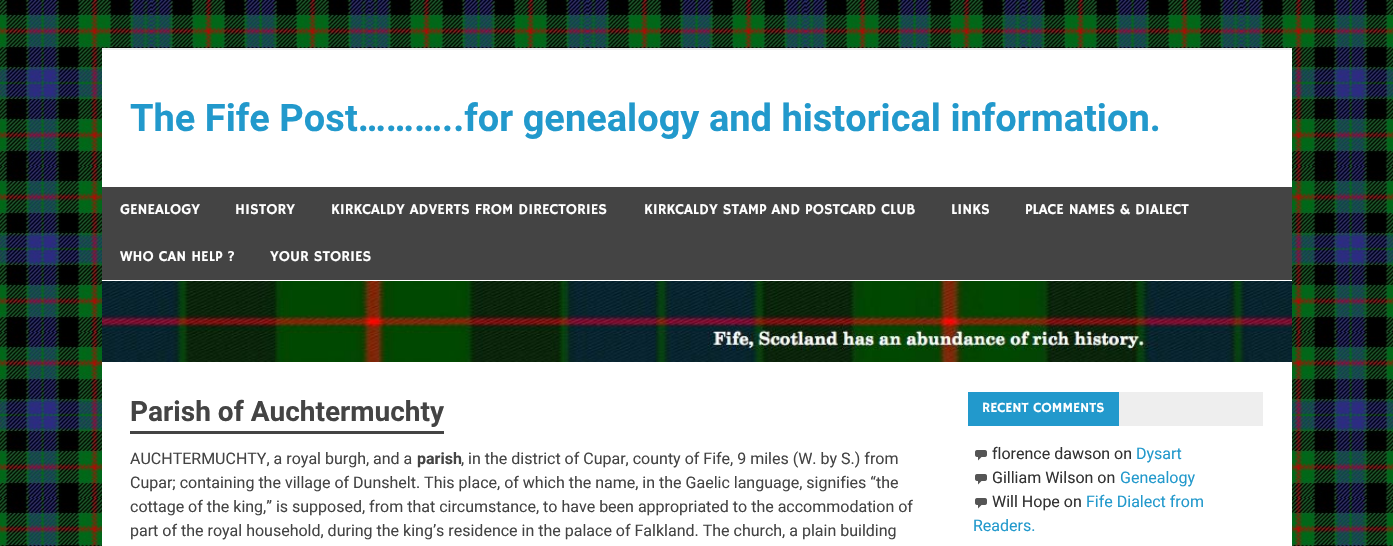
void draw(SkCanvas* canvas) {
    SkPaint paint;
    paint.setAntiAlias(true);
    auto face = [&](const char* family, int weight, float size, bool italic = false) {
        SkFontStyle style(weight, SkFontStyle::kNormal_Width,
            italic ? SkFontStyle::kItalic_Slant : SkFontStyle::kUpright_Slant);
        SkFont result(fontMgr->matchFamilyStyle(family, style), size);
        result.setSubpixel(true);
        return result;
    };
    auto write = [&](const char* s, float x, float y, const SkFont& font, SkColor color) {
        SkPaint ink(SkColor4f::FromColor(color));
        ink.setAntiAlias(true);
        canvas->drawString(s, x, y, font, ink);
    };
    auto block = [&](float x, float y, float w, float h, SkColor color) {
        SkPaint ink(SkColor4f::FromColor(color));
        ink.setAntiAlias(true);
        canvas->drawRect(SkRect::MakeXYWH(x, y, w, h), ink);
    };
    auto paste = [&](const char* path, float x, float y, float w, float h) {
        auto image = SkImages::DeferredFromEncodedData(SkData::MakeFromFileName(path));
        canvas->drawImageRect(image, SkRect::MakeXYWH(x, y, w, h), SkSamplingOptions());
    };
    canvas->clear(SK_ColorWHITE);
    paste("pic1.png", 0, 0, 1393, 546);
    block(102, 50, 1190, 496, SK_ColorWHITE);
    block(102, 48, 1190, 2, SkColorSetRGB(238, 238, 238));
    auto kFont1 = face("Roboto", 700, 38);
    write("The Fife Post………..for genealogy and historical information.", 130, 131, kFont1, SkColorSetRGB(34, 153, 204));
    block(102, 187, 1190, 93, SkColorSetRGB(68, 68, 68));
    auto kFont2 = face("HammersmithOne", 400, 15);
    write("GENEALOGY", 120, 214, kFont2, SK_ColorWHITE);
    write("HISTORY", 235, 214, kFont2, SK_ColorWHITE);
    write("KIRKCALDY ADVERTS FROM DIRECTORIES", 331, 214, kFont2, SK_ColorWHITE);
    write("KIRKCALDY STAMP AND POSTCARD CLUB", 644, 214, kFont2, SK_ColorWHITE);
    write("LINKS", 951, 214, kFont2, SK_ColorWHITE);
    write("PLACE NAMES & DIALECT", 1025, 214, kFont2, SK_ColorWHITE);
    write("WHO CAN HELP ?", 120, 261, kFont2, SK_ColorWHITE);
    write("YOUR STORIES", 270, 261, kFont2, SK_ColorWHITE);
    paste("pic2.png", 102, 281, 1190, 81);
    auto kFont3 = face("Roboto", 700, 28);
    write("Parish of Auchtermuchty", 130, 421, kFont3, SkColorSetRGB(68, 68, 68));
    block(130, 431, 314, 3, SkColorSetRGB(68, 68, 68));
    auto kFont4 = face("Roboto", 400, 16);
    write("AUCHTERMUCHTY, a royal burgh, and a", 130, 464, kFont4, SkColorSetRGB(68, 68, 68));
    auto kFont5 = face("Roboto", 700, 16);
    write("parish", 417, 464, kFont5, SkColorSetRGB(68, 68, 68));
    write(", in the district of Cupar, county of Fife, 9 miles (W. by S.) from", 461, 464, kFont4, SkColorSetRGB(68, 68, 68));
    write("Cupar; containing the village of Dunshelt. This place, of which the name, in the Gaelic language, signifies “the", 130, 488, kFont4, SkColorSetRGB(68, 68, 68));
    write("cottage of the king,” is supposed, from that circumstance, to have been appropriated to the accommodation of", 130, 512, kFont4, SkColorSetRGB(68, 68, 68));
    write("part of the royal household, during the king’s residence in the palace of Falkland. The church, a plain building", 130, 536, kFont4, SkColorSetRGB(68, 68, 68));
    block(1119, 392, 144, 34, SkColorSetRGB(238, 238, 238));
    block(968, 392, 151, 34, SkColorSetRGB(34, 153, 204));
    auto kFont6 = face("HammersmithOne", 400, 14);
    write("RECENT COMMENTS", 982, 412, kFont6, SK_ColorWHITE);
    paste("pic3.png", 975, 450, 12, 11);
    write("florence dawson on", 992, 459, kFont4, SkColorSetRGB(51, 51, 51));
    write("Dysart", 1136, 459, kFont4, SkColorSetRGB(34, 153, 204));
    paste("pic3.png", 975, 474, 12, 11);
    write("Gilliam Wilson on", 992, 483, kFont4, SkColorSetRGB(51, 51, 51));
    write("Genealogy", 1120, 483, kFont4, SkColorSetRGB(34, 153, 204));
    paste("pic3.png", 975, 498, 12, 11);
    write("Will Hope on", 992, 507, kFont4, SkColorSetRGB(51, 51, 51));
    write("Fife Dialect from", 1086, 507, kFont4, SkColorSetRGB(34, 153, 204));
    write("Readers.", 973, 531, kFont4, SkColorSetRGB(34, 153, 204));
}
